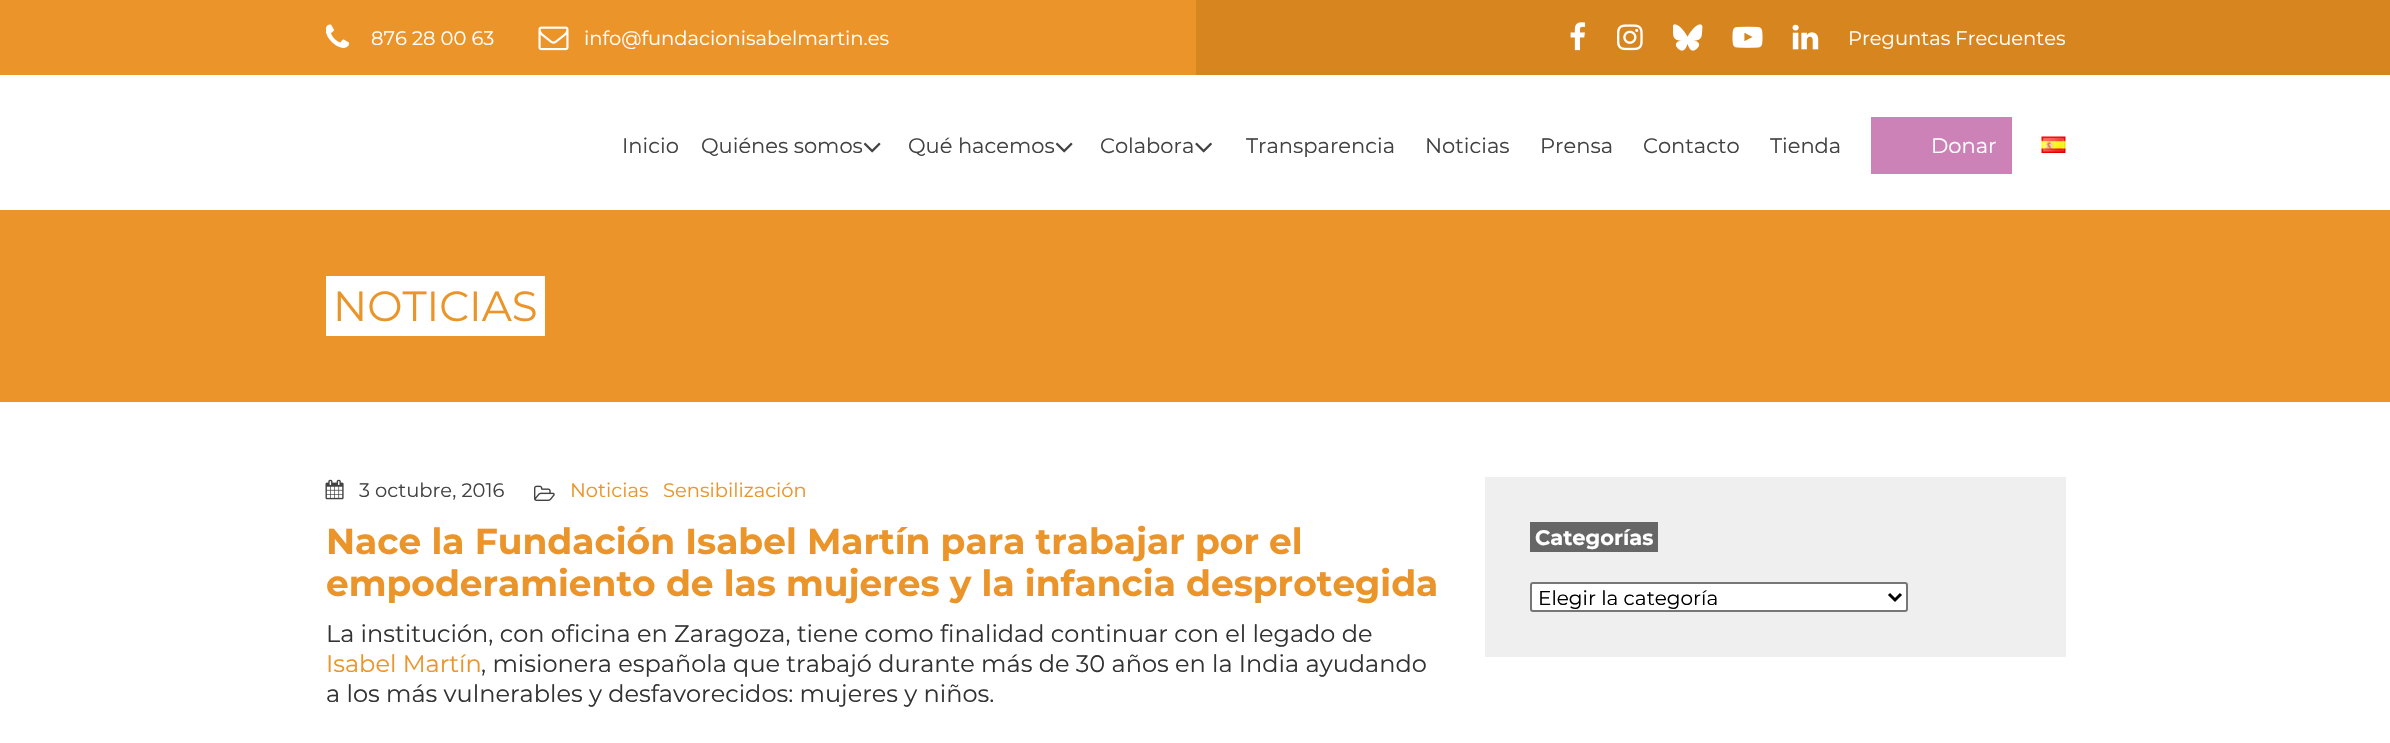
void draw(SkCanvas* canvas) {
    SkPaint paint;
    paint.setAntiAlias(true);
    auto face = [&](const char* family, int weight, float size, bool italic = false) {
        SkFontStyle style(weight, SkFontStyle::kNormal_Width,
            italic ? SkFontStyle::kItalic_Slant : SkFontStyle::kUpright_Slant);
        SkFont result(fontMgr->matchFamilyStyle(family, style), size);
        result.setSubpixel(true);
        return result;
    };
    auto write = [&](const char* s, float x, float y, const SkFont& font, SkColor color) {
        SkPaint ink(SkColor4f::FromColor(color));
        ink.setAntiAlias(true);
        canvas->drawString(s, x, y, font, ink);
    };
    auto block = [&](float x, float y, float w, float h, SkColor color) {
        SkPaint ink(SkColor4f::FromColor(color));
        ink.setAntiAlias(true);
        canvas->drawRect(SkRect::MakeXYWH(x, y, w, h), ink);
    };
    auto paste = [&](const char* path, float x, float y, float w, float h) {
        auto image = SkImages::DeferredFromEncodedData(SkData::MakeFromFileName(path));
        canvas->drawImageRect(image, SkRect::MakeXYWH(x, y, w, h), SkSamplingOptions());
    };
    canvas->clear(SK_ColorWHITE);
    block(0, 0, 1196, 75, SkColorSetRGB(235, 148, 41));
    block(1196, 0, 1194, 75, SkColorSetRGB(215, 133, 31));
    paste("pic1.png", 326, 24, 23, 24);
    auto kFont1 = face("Montserrat", 400, 19.5f);
    write("876 28 00 63", 371, 45, kFont1, SK_ColorWHITE);
    paste("pic2.png", 538, 26, 31, 25);
    write("info@fundacionisabelmartin.es", 584, 45, kFont1, SK_ColorWHITE);
    paste("pic3.png", 1570, 22, 16, 29);
    paste("pic4.png", 1617, 24, 26, 27);
    paste("pic5.png", 1673, 24, 30, 27);
    paste("pic6.png", 1732, 26, 31, 22);
    paste("pic7.png", 1792, 24, 27, 26);
    write("Preguntas Frecuentes", 1848, 45, kFont1, SK_ColorWHITE);
    auto kFont2 = face("Montserrat", 400, 21);
    write("Inicio", 622, 153, kFont2, SkColorSetRGB(66, 66, 66));
    write("Quiénes somos", 701, 153, kFont2, SkColorSetRGB(66, 66, 66));
    paste("pic8.png", 863, 142, 18, 11);
    write("Qué hacemos", 908, 153, kFont2, SkColorSetRGB(66, 66, 66));
    paste("pic8.png", 1055, 142, 18, 11);
    write("Colabora", 1100, 153, kFont2, SkColorSetRGB(66, 66, 66));
    paste("pic9.png", 1195, 142, 17, 11);
    write("Transparencia", 1246, 153, kFont2, SkColorSetRGB(66, 66, 66));
    write("Noticias", 1425, 153, kFont2, SkColorSetRGB(66, 66, 66));
    write("Prensa", 1540, 153, kFont2, SkColorSetRGB(66, 66, 66));
    write("Contacto", 1643, 153, kFont2, SkColorSetRGB(66, 66, 66));
    write("Tienda", 1770, 153, kFont2, SkColorSetRGB(66, 66, 66));
    block(1871, 117, 141, 57, SkColorSetRGB(205, 130, 183));
    write("Donar", 1931, 153, kFont2, SK_ColorWHITE);
    paste("pic10.png", 2041, 136, 25, 17);
    block(0, 210, 2390, 192, SkColorSetRGB(235, 148, 41));
    block(326, 276, 219, 60, SK_ColorWHITE);
    auto kFont3 = face("Montserrat", 400, 42);
    write("NOTICIAS", 333, 321, kFont3, SkColorSetRGB(235, 148, 41));
    paste("pic11.png", 325, 479, 19, 21);
    write("3 octubre, 2016", 359, 497, kFont1, SkColorSetRGB(66, 66, 66));
    paste("pic12.png", 534, 485, 21, 16);
    write("Noticias", 570, 497, kFont1, SkColorSetRGB(235, 148, 41));
    write("Sensibilización", 663, 497, kFont1, SkColorSetRGB(235, 148, 41));
    auto kFont4 = face("Montserrat", 700, 36);
    write("Nace la Fundación Isabel Martín para trabajar por el", 326, 554, kFont4, SkColorSetRGB(235, 148, 41));
    write("empoderamiento de las mujeres y la infancia desprotegida", 326, 596, kFont4, SkColorSetRGB(235, 148, 41));
    auto kFont5 = face("Montserrat", 400, 24);
    write("La institución, con oficina en Zaragoza, tiene como finalidad continuar con el legado de", 326, 642, kFont5, SkColorSetRGB(51, 51, 51));
    write("Isabel Martín", 326, 672, kFont5, SkColorSetRGB(235, 148, 41));
    write(", misionera española que trabajó durante más de 30 años en la India ayudando", 481, 672, kFont5, SkColorSetRGB(51, 51, 51));
    write("a los más vulnerables y desfavorecidos: mujeres y niños.", 326, 702, kFont5, SkColorSetRGB(51, 51, 51));
    block(1485, 477, 581, 180, SkColorSetRGB(239, 239, 239));
    block(1530, 522, 128, 30, SkColorSetRGB(102, 102, 102));
    auto kFont6 = face("Montserrat", 700, 21);
    write("Categorías", 1535, 545, kFont6, SK_ColorWHITE);
    paint.setColor(SK_ColorWHITE);
    canvas->drawRoundRect(SkRect::MakeXYWH(1531, 583, 376, 28), 2, 2, paint);
    paint.setStyle(SkPaint::kStroke_Style);
    paint.setStrokeWidth(2);
    paint.setColor(SkColorSetRGB(118, 118, 118));
    canvas->drawRoundRect(SkRect::MakeXYWH(1531, 583, 376, 28), 2, 2, paint);
    paint.setStrokeWidth(3);
    paint.setColor(SK_ColorBLACK);
    canvas->drawPath(SkPathBuilder().moveTo(1889, 594).lineTo(1895, 600).lineTo(1901, 594).detach(), paint);
    auto kFont7 = face("Montserrat", 400, 20);
    write("Elegir la categoría", 1538, 605, kFont7, SK_ColorBLACK);
}
